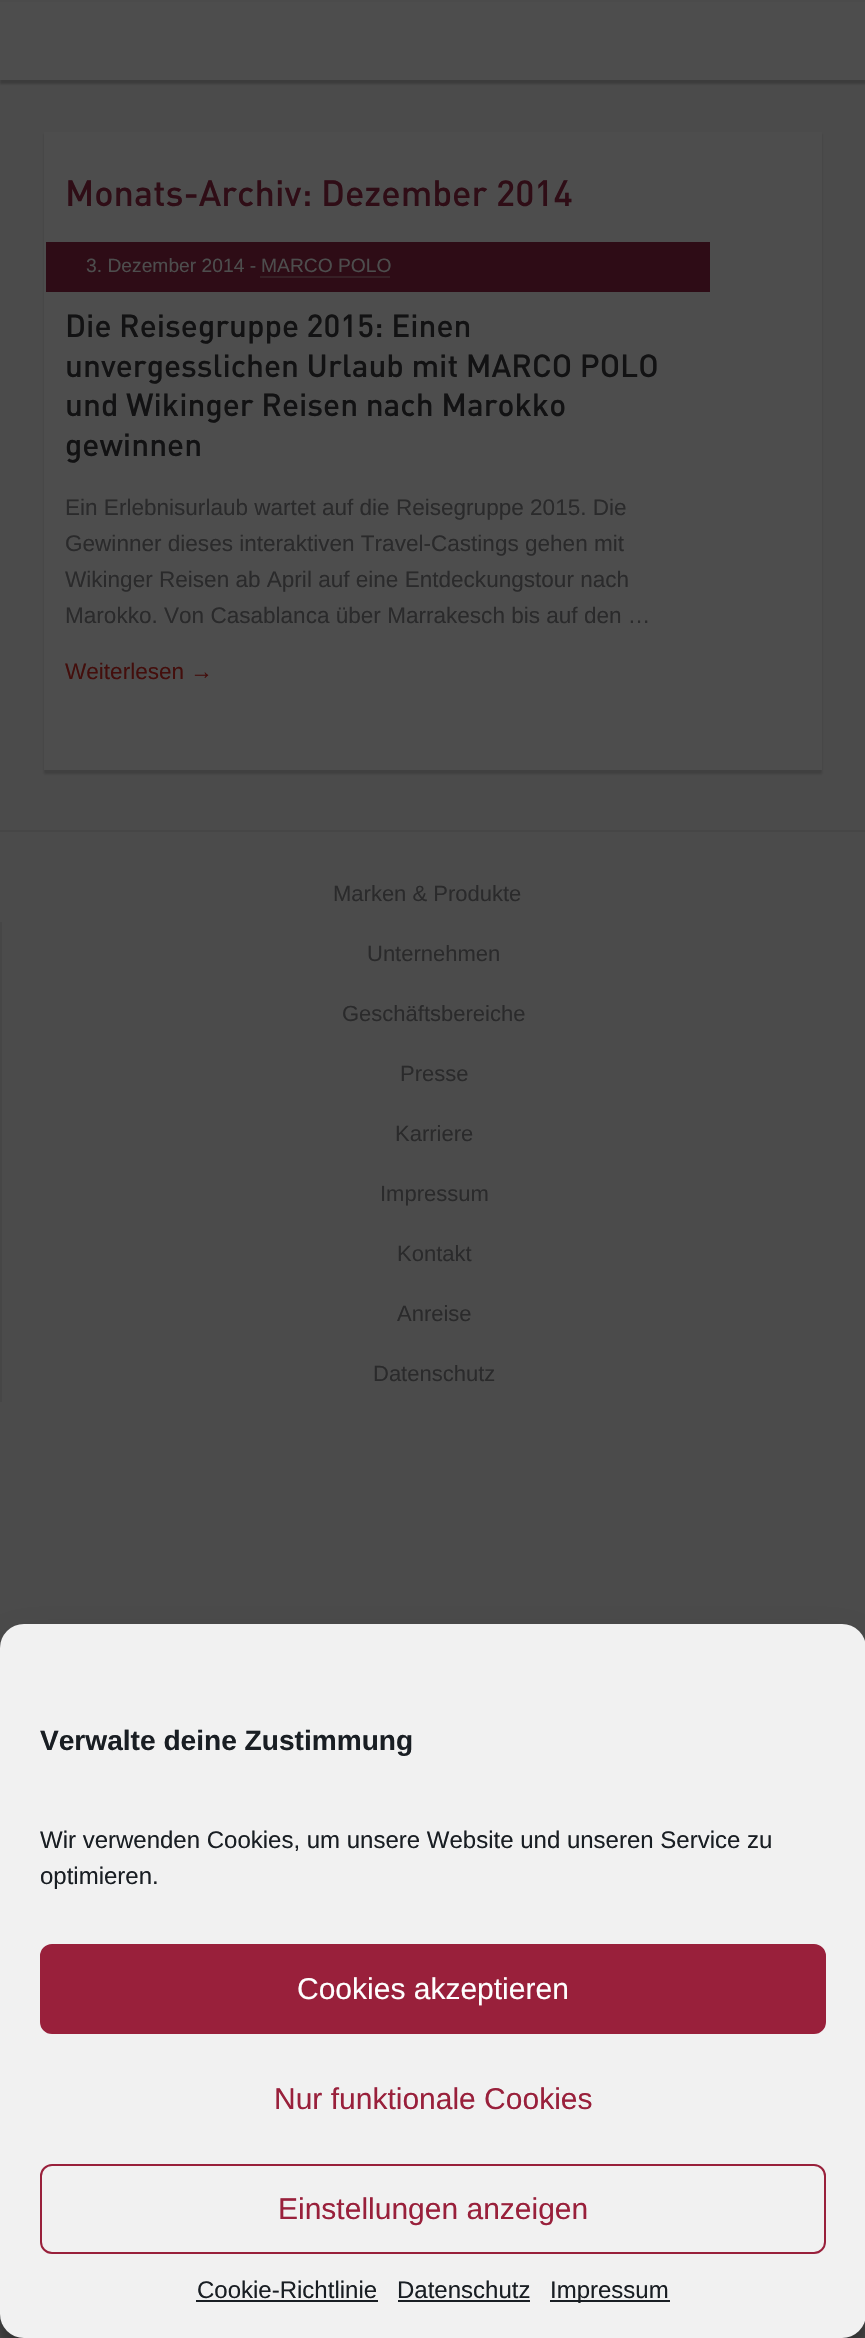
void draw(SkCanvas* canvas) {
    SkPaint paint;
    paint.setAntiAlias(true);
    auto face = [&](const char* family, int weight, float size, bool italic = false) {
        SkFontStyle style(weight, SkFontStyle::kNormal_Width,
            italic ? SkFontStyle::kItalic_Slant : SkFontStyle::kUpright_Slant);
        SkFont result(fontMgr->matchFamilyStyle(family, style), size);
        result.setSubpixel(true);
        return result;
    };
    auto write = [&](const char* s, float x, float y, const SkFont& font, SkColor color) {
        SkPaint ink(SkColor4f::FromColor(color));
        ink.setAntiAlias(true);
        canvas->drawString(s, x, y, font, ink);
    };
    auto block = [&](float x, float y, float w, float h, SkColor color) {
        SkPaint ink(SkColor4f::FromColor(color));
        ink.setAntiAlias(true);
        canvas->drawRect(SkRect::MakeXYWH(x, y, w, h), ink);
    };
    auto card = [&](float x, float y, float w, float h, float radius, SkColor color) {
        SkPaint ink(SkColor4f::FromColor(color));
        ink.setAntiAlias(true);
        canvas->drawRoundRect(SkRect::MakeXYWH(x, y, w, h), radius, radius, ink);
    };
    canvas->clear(SkColorSetRGB(75, 75, 75));
    paint.setColor(SkColorSetARGB(51, 0, 0, 0));
    paint.setMaskFilter(SkMaskFilter::MakeBlur(kNormal_SkBlurStyle, 1));
    canvas->drawRect(SkRect::MakeXYWH(0, 4, 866, 80), paint);
    paint.setMaskFilter(nullptr);
    block(0, 2, 865, 78, SkColorSetRGB(77, 77, 77));
    paint.setColor(SkColorSetARGB(38, 0, 0, 0));
    paint.setMaskFilter(SkMaskFilter::MakeBlur(kNormal_SkBlurStyle, 1));
    canvas->drawRect(SkRect::MakeXYWH(44, 134, 778, 640), paint);
    paint.setMaskFilter(nullptr);
    block(44, 132, 778, 638, SkColorSetRGB(77, 77, 77));
    auto kFont1 = face("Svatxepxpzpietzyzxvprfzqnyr", 500, 36);
    write("Monats-Archiv: Dezember 2014", 65, 206, kFont1, SkColorSetRGB(47, 13, 22));
    block(46, 242, 664, 50, SkColorSetRGB(46, 12, 22));
    auto kFont2 = face("Liberation Sans", 400, 19.25f);
    write("3. Dezember 2014 -", 86, 272, kFont2, SkColorSetRGB(77, 77, 77));
    write("MARCO POLO", 261, 272, kFont2, SkColorSetRGB(77, 77, 77));
    block(260, 276, 130, 2, SkColorSetRGB(55, 32, 38));
    auto kFont3 = face("Svatxepxpzpietzyzxvprfzqnyr", 500, 31.6f);
    write("Die Reisegruppe 2015: Einen", 65, 337, kFont3, SkColorSetRGB(18, 18, 19));
    write("unvergesslichen Urlaub mit MARCO POLO", 65, 377, kFont3, SkColorSetRGB(18, 18, 19));
    write("und Wikinger Reisen nach Marokko", 65, 416, kFont3, SkColorSetRGB(18, 18, 19));
    write("gewinnen", 65, 456, kFont3, SkColorSetRGB(18, 18, 19));
    auto kFont4 = face("Liberation Sans", 400, 22.55f);
    write("Ein Erlebnisurlaub wartet auf die Reisegruppe 2015. Die", 65, 515, kFont4, SkColorSetRGB(42, 42, 43));
    write("Gewinner dieses interaktiven Travel-Castings gehen mit", 65, 551, kFont4, SkColorSetRGB(42, 42, 43));
    write("Wikinger Reisen ab April auf eine Entdeckungstour nach", 65, 587, kFont4, SkColorSetRGB(42, 42, 43));
    write("Marokko. Von Casablanca über Marrakesch bis auf den …", 65, 623, kFont4, SkColorSetRGB(42, 42, 43));
    write("Weiterlesen →", 65, 679, kFont4, SkColorSetRGB(67, 14, 12));
    block(0, 830, 865, 2, SkColorSetRGB(70, 70, 70));
    auto kFont5 = face("Liberation Sans", 400, 22);
    write("Marken & Produkte", 333, 901, kFont5, SkColorSetRGB(42, 42, 43));
    block(0, 922, 2, 480, SkColorSetRGB(70, 70, 70));
    write("Unternehmen", 367, 961, kFont5, SkColorSetRGB(42, 42, 43));
    write("Geschäftsbereiche", 342, 1021, kFont5, SkColorSetRGB(42, 42, 43));
    write("Presse", 400, 1081, kFont5, SkColorSetRGB(42, 42, 43));
    write("Karriere", 395, 1141, kFont5, SkColorSetRGB(42, 42, 43));
    write("Impressum", 380, 1201, kFont5, SkColorSetRGB(42, 42, 43));
    write("Kontakt", 397, 1261, kFont5, SkColorSetRGB(42, 42, 43));
    write("Anreise", 397, 1321, kFont5, SkColorSetRGB(42, 42, 43));
    write("Datenschutz", 373, 1381, kFont5, SkColorSetRGB(42, 42, 43));
    paint.setColor(SkColorSetARGB(59, 0, 0, 0));
    paint.setMaskFilter(SkMaskFilter::MakeBlur(kNormal_SkBlurStyle, 6));
    canvas->drawRoundRect(SkRect::MakeXYWH(0, 1636, 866, 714), 24, 24, paint);
    paint.setMaskFilter(nullptr);
    paint.setColor(SkColorSetARGB(48, 0, 0, 0));
    paint.setMaskFilter(SkMaskFilter::MakeBlur(kNormal_SkBlurStyle, 20));
    canvas->drawRoundRect(SkRect::MakeXYWH(0, 1644, 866, 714), 24, 24, paint);
    paint.setMaskFilter(nullptr);
    card(0, 1624, 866, 714, 24, SkColorSetRGB(241, 241, 241));
    auto kFont6 = face("Liberation Sans", 700, 28.1f);
    write("Verwalte deine Zustimmung", 40, 1750, kFont6, SkColorSetRGB(25, 30, 35));
    auto kFont7 = face("Liberation Sans", 400, 24);
    write("Wir verwenden Cookies, um unsere Website und unseren Service zu", 40, 1848, kFont7, SkColorSetRGB(25, 30, 35));
    write("optimieren.", 40, 1884, kFont7, SkColorSetRGB(25, 30, 35));
    paint.setColor(SkColorSetRGB(153, 32, 59));
    canvas->drawRoundRect(SkRect::MakeXYWH(41, 1945, 784, 88), 11, 11, paint);
    paint.setStyle(SkPaint::kStroke_Style);
    paint.setStrokeWidth(2);
    canvas->drawRoundRect(SkRect::MakeXYWH(41, 1945, 784, 88), 11, 11, paint);
    auto kFont8 = face("Liberation Sans", 400, 30);
    write("Cookies akzeptieren", 297, 1999, kFont8, SK_ColorWHITE);
    write("Nur funktionale Cookies", 274, 2109, kFont8, SkColorSetRGB(153, 32, 59));
    canvas->drawRoundRect(SkRect::MakeXYWH(41, 2165, 784, 88), 11, 11, paint);
    write("Einstellungen anzeigen", 278, 2219, kFont8, SkColorSetRGB(153, 32, 59));
    write("Cookie-Richtlinie", 197, 2298, kFont7, SkColorSetRGB(25, 30, 35));
    block(196, 2300, 182, 2, SkColorSetRGB(25, 30, 35));
    write("Datenschutz", 397, 2298, kFont7, SkColorSetRGB(25, 30, 35));
    block(398, 2300, 132, 2, SkColorSetRGB(25, 30, 35));
    block(550, 2300, 120, 2, SkColorSetRGB(25, 30, 35));
    write("Impressum", 550, 2298, kFont7, SkColorSetRGB(25, 30, 35));
}
